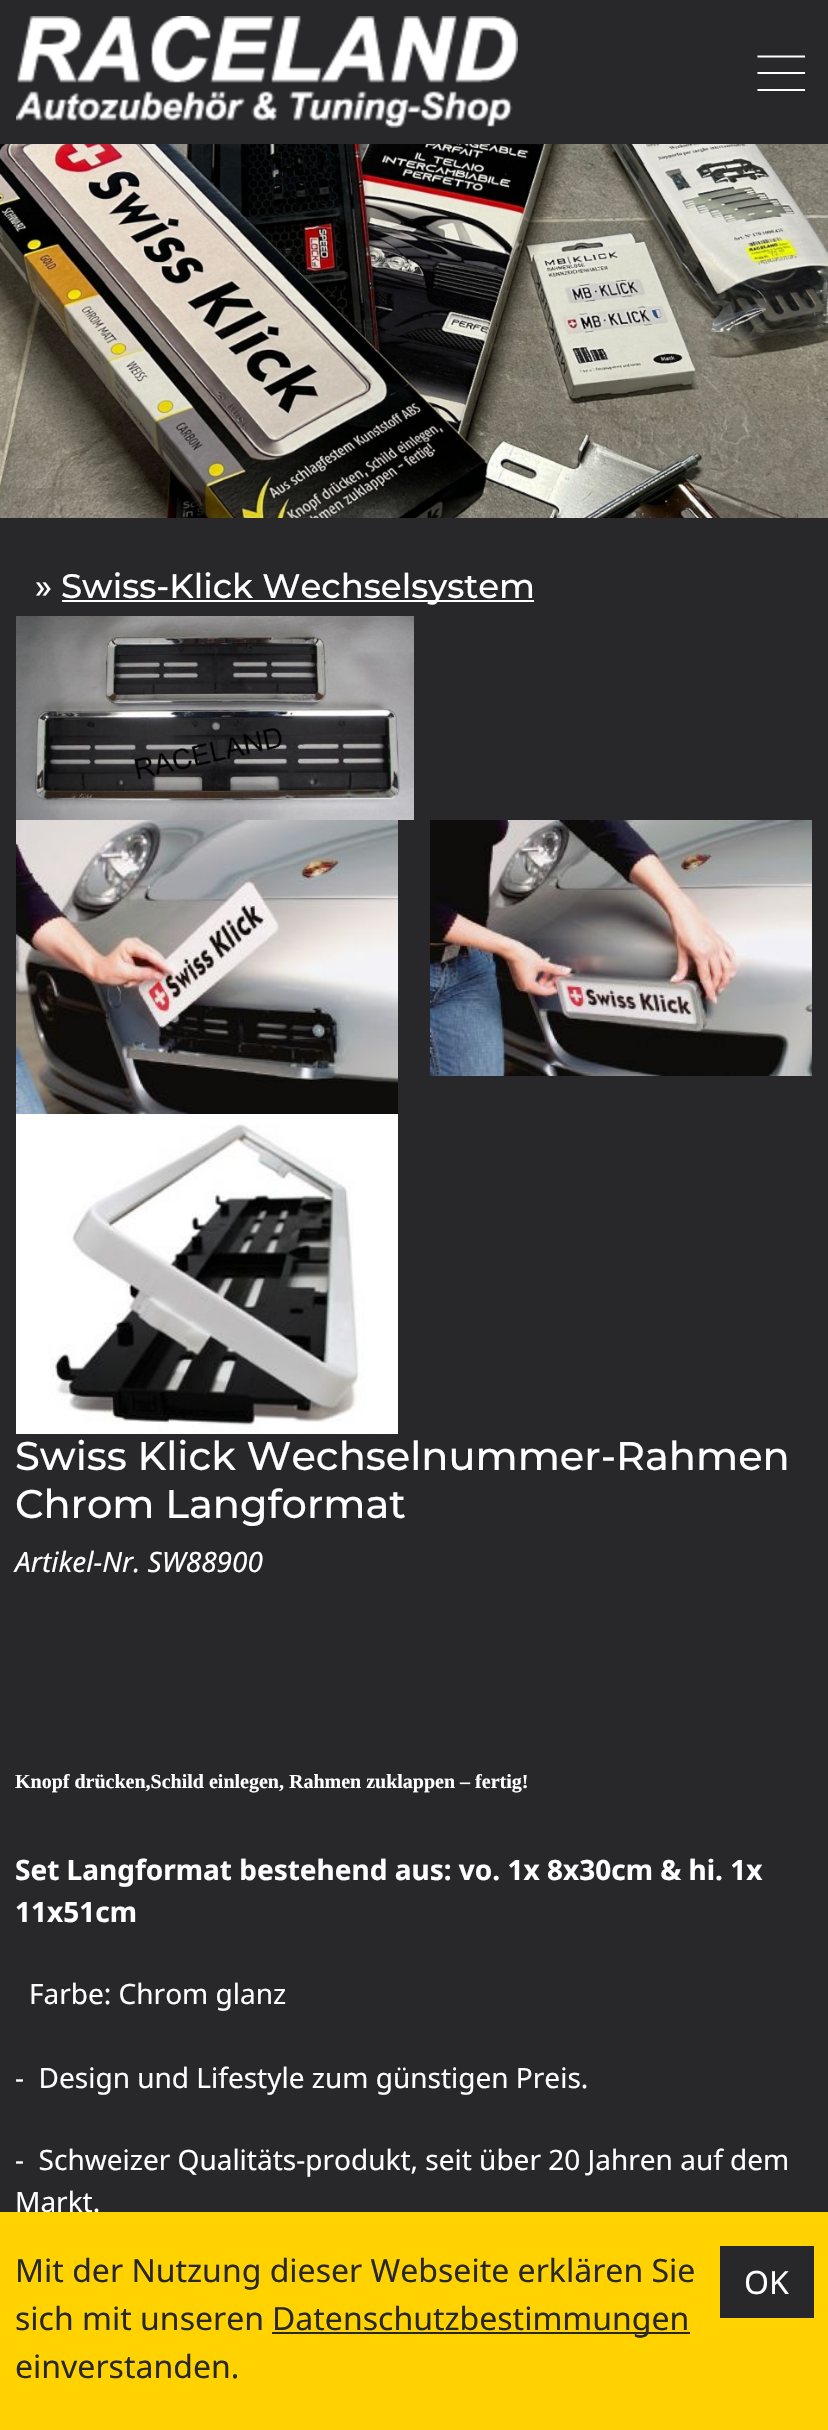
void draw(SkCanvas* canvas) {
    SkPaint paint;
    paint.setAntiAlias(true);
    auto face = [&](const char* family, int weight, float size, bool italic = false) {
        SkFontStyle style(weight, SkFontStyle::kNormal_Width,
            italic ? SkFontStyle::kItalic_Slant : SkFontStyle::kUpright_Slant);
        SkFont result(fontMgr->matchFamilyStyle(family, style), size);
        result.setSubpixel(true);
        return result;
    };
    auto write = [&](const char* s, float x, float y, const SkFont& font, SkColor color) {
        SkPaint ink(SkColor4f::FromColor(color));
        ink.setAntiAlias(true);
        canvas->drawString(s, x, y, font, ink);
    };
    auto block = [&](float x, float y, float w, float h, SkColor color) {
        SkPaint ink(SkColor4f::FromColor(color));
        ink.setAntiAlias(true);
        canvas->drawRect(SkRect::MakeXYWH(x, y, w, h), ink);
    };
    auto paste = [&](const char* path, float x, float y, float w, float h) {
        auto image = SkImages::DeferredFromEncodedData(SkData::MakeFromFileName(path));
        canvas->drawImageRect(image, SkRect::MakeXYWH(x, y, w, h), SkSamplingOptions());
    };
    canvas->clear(SkColorSetRGB(40, 40, 43));
    paste("pic1.png", 16, 16, 502, 112);
    paint.setStyle(SkPaint::kStroke_Style);
    paint.setStrokeWidth(2.1f);
    paint.setStrokeCap(SkPaint::kSquare_Cap);
    paint.setColor(SK_ColorWHITE);
    canvas->drawPath(SkPathBuilder().moveTo(758.5f, 56.5f).lineTo(804, 56.5f).moveTo(758.5f, 73).lineTo(804, 73).moveTo(758.5f, 90).lineTo(804, 90).detach(), paint);
    paste("pic2.png", 0, 144, 828, 374);
    auto kFont1 = face("Montserrat", 500, 34);
    write("»", 35, 598, kFont1, SK_ColorWHITE);
    block(62, 600, 472, 2, SK_ColorWHITE);
    write("Swiss-Klick Wechselsystem", 61, 598, kFont1, SK_ColorWHITE);
    paste("pic3.png", 16, 616, 398, 204);
    paste("pic4.png", 16, 820, 382, 294);
    paste("pic5.png", 430, 820, 382, 256);
    paste("pic6.png", 16, 1114, 382, 320);
    auto kFont2 = face("Montserrat", 500, 39.9f);
    write("Swiss Klick Wechselnummer-Rahmen", 15, 1470, kFont2, SK_ColorWHITE);
    write("Chrom Langformat", 15, 1518, kFont2, SK_ColorWHITE);
    auto kFont3 = face("Noto Sans", 400, 28, true);
    write("Artikel-Nr. SW88900", 15, 1572, kFont3, SK_ColorWHITE);
    auto kFont4 = face("Liberation Serif", 700, 20);
    write("Knopf drücken,Schild einlegen, Rahmen zuklappen – fertig!", 15, 1788, kFont4, SK_ColorWHITE);
    auto kFont5 = face("Noto Sans", 700, 28);
    write("Set Langformat bestehend aus: vo. 1x 8x30cm & hi. 1x", 15, 1880, kFont5, SK_ColorWHITE);
    write("11x51cm", 15, 1922, kFont5, SK_ColorWHITE);
    auto kFont6 = face("Noto Sans", 400, 28);
    write("Farbe: Chrom glanz", 29, 2004, kFont6, SK_ColorWHITE);
    write("-  Design und Lifestyle zum günstigen Preis.", 15, 2088, kFont6, SK_ColorWHITE);
    write("-  Schweizer Qualitäts-produkt, seit über 20 Jahren auf dem", 15, 2170, kFont6, SK_ColorWHITE);
    write("Markt.", 15, 2212, kFont6, SK_ColorWHITE);
    block(0, 2212, 828, 218, SkColorSetRGB(255, 210, 0));
    auto kFont7 = face("Noto Sans", 400, 32);
    write("Mit der Nutzung dieser Webseite erklären Sie", 15, 2282, kFont7, SkColorSetRGB(40, 40, 43));
    write("sich mit unseren", 15, 2330, kFont7, SkColorSetRGB(40, 40, 43));
    block(272, 2332, 418, 2, SkColorSetRGB(40, 40, 43));
    write("Datenschutzbestimmungen", 272, 2330, kFont7, SkColorSetRGB(40, 40, 43));
    write("einverstanden.", 15, 2378, kFont7, SkColorSetRGB(40, 40, 43));
    block(720, 2246, 94, 72, SkColorSetRGB(40, 40, 43));
    write("OK", 744, 2294, kFont7, SK_ColorWHITE);
}
